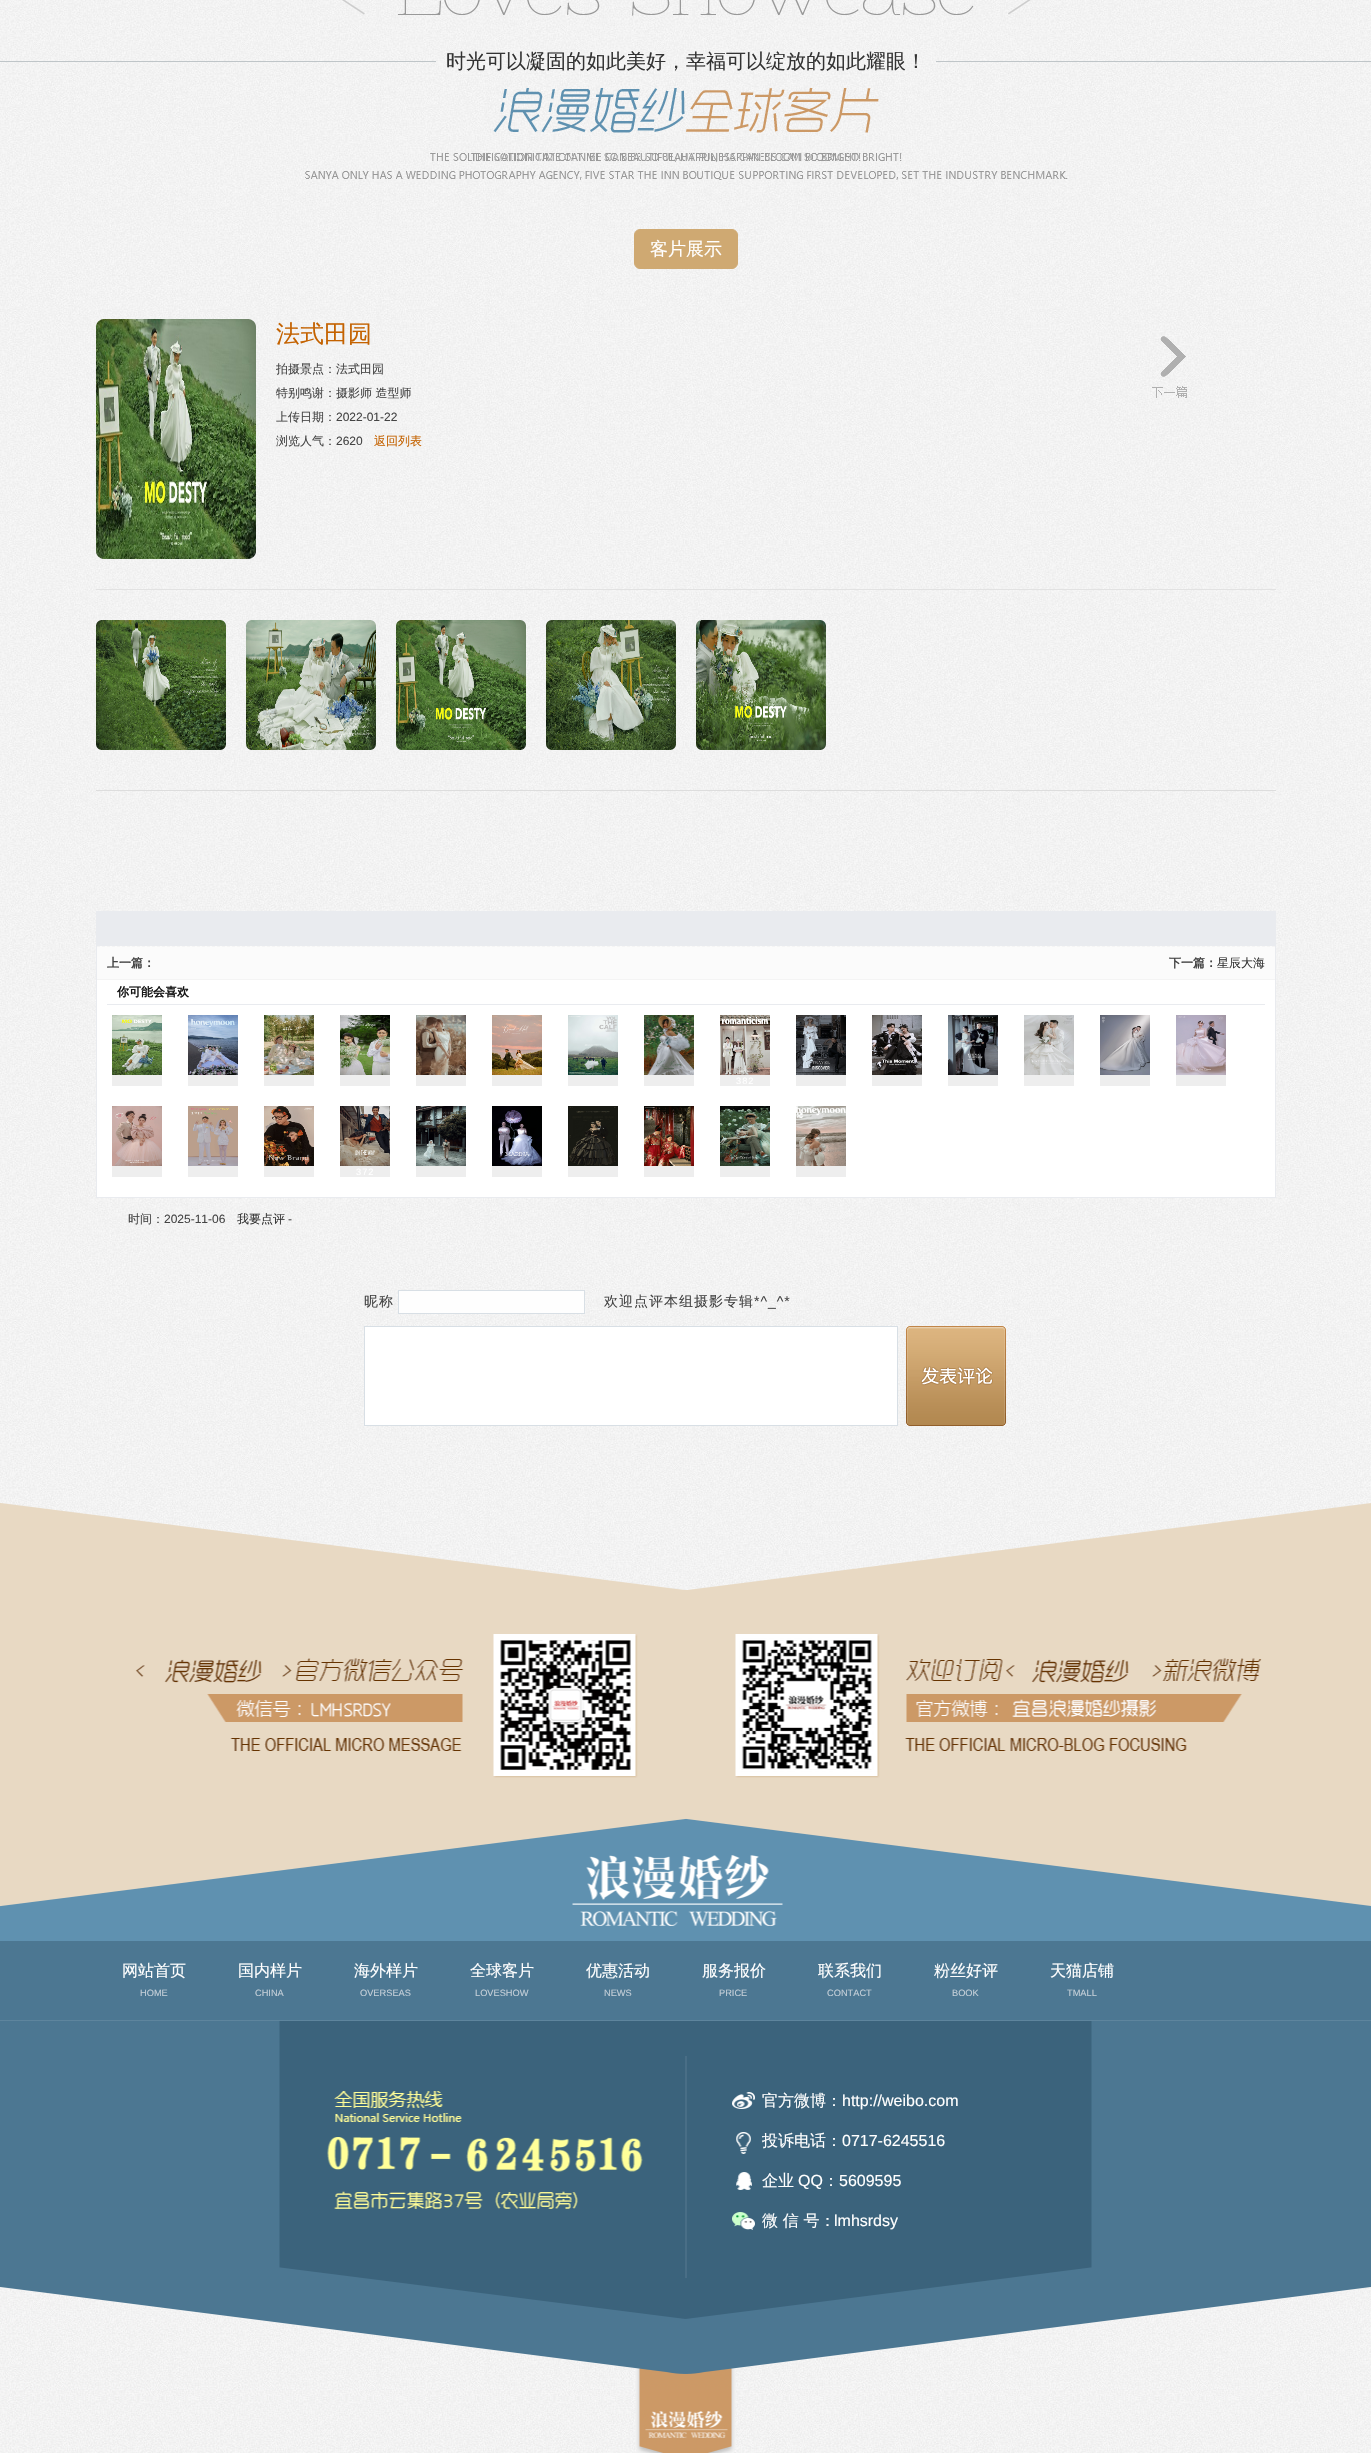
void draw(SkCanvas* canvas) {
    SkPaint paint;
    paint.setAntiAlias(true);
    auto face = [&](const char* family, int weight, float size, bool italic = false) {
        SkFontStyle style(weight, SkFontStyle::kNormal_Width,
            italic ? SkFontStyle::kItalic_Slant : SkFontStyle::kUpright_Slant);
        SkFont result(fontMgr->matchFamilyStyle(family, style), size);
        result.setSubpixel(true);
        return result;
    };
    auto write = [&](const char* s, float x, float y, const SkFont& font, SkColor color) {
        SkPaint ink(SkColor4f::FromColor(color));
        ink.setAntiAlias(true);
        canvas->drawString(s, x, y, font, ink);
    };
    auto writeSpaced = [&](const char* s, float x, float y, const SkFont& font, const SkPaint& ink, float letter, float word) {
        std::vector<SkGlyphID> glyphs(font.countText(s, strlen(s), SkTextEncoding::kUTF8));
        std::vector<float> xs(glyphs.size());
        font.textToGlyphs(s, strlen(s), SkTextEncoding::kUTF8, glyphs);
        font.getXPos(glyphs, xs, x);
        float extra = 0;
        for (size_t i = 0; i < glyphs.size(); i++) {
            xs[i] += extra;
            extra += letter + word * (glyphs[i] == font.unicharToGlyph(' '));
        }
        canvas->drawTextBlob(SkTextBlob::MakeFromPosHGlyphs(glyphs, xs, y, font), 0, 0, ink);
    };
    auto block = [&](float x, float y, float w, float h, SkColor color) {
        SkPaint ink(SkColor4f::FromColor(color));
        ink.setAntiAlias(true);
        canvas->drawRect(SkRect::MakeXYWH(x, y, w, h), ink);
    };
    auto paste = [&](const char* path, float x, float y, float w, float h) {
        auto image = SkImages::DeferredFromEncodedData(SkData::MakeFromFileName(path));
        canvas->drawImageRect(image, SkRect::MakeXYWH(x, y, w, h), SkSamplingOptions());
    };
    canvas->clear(SK_ColorWHITE);
    paste("pic1.png", 0, 0, 1371, 1590);
    paste("pic2.png", 305, 0, 763, 180);
    block(0, 61, 1371, 1, SkColorSetRGB(191, 197, 200));
    paste("pic3.png", 436, 50, 500, 23);
    auto kFont1 = face("WenQuanYi Zen Hei", 500, 20);
    write("时光可以凝固的如此美好，幸福可以绽放的如此耀眼！", 446, 68, kFont1, SkColorSetRGB(51, 51, 51));
    paint.setColor(SkColorSetRGB(207, 169, 114));
    canvas->drawRoundRect(SkRect::MakeXYWH(634.5f, 229.5f, 103, 39), 5.5f, 5.5f, paint);
    paint.setStyle(SkPaint::kStroke_Style);
    paint.setStrokeWidth(1);
    canvas->drawRoundRect(SkRect::MakeXYWH(634.5f, 229.5f, 103, 39), 5.5f, 5.5f, paint);
    auto kFont2 = face("WenQuanYi Zen Hei", 500, 18);
    write("客片展示", 650, 255, kFont2, SK_ColorWHITE);
    block(96, 589, 1180, 1, SkColorSetRGB(226, 226, 226));
    paste("pic4.png", 96, 319, 160, 240);
    paste("pic5.png", 96, 319, 160, 240);
    auto kFont3 = face("WenQuanYi Zen Hei", 500, 24);
    write("法式田园", 276, 342, kFont3, SkColorSetRGB(196, 98, 0));
    auto kFont4 = face("WenQuanYi Zen Hei", 500, 12);
    write("拍摄景点：法式田园", 276, 373, kFont4, SkColorSetRGB(68, 68, 68));
    write("特别鸣谢：摄影师 造型师", 276, 397, kFont4, SkColorSetRGB(68, 68, 68));
    write("上传日期：", 276, 421, kFont4, SkColorSetRGB(68, 68, 68));
    auto kFont5 = face("Liberation Sans", 400, 12);
    write("2022-01-22", 336, 421, kFont5, SkColorSetRGB(68, 68, 68));
    write("浏览人气：", 276, 445, kFont4, SkColorSetRGB(68, 68, 68));
    write("2620", 336, 445, kFont5, SkColorSetRGB(68, 68, 68));
    write("返回列表", 374, 445, kFont4, SkColorSetRGB(196, 98, 0));
    paste("pic6.png", 1152, 336, 35, 62);
    paste("pic7.png", 96, 620, 130, 130);
    paste("pic8.png", 96, 620, 130, 130);
    paste("pic9.png", 246, 620, 130, 130);
    paste("pic10.png", 246, 620, 130, 130);
    paste("pic11.png", 396, 620, 130, 130);
    paste("pic12.png", 396, 620, 130, 130);
    paste("pic13.png", 546, 620, 130, 130);
    paste("pic14.png", 546, 620, 130, 130);
    paste("pic15.png", 696, 620, 130, 130);
    paste("pic16.png", 696, 620, 130, 130);
    block(96, 790, 1180, 1, SkColorSetRGB(221, 221, 221));
    block(96, 911, 1180, 35, SkColorSetRGB(233, 235, 239));
    block(97, 980, 1178, 217, SK_ColorWHITE);
    block(1275, 946, 1, 252, SkColorSetRGB(233, 235, 239));
    block(96, 1197, 1180, 1, SkColorSetRGB(233, 235, 239));
    block(96, 946, 1, 252, SkColorSetRGB(233, 235, 239));
    block(97, 946, 1178, 33, SkColorSetRGB(251, 251, 251));
    paint.setColor(SkColorSetRGB(244, 244, 244));
    paint.setPathEffect(SkDashPathEffect::Make({{3, 2}}, 0));
    canvas->drawPath(SkPathBuilder().moveTo(97, 946.5f).lineTo(1275, 946.5f).detach(), paint);
    paint.setPathEffect(nullptr);
    block(97, 979, 1178, 1, SkColorSetRGB(244, 244, 244));
    auto kFont6 = face("WenQuanYi Zen Hei", 700, 12);
    write("上一篇：", 107, 967, kFont6, SkColorSetRGB(68, 68, 68));
    write("下一篇：", 1169, 967, kFont6, SkColorSetRGB(68, 68, 68));
    write("星辰大海", 1217, 967, kFont4, SkColorSetRGB(51, 51, 51));
    block(107, 1004, 1158, 1, SkColorSetRGB(233, 235, 239));
    write("你可能会喜欢", 117, 996, kFont6, SkColorSetRGB(20, 20, 20));
    block(112, 1075, 50, 11, SkColorSetRGB(238, 238, 238));
    paste("pic17.png", 112, 1015, 50, 60);
    block(188, 1075, 50, 11, SkColorSetRGB(238, 238, 238));
    paste("pic18.png", 188, 1015, 50, 60);
    block(264, 1075, 50, 11, SkColorSetRGB(238, 238, 238));
    paste("pic19.png", 264, 1015, 50, 60);
    block(340, 1075, 50, 11, SkColorSetRGB(238, 238, 238));
    paste("pic20.png", 340, 1015, 50, 60);
    block(416, 1075, 50, 11, SkColorSetRGB(238, 238, 238));
    paste("pic21.png", 416, 1015, 50, 60);
    block(492, 1075, 50, 11, SkColorSetRGB(238, 238, 238));
    paste("pic22.png", 492, 1015, 50, 60);
    block(568, 1075, 50, 11, SkColorSetRGB(238, 238, 238));
    paste("pic23.png", 568, 1015, 50, 60);
    block(644, 1075, 50, 11, SkColorSetRGB(238, 238, 238));
    paste("pic24.png", 644, 1015, 50, 60);
    block(720, 1075, 50, 11, SkColorSetRGB(238, 238, 238));
    paste("pic25.png", 720, 1015, 50, 60);
    auto kFont7 = face("Liberation Sans", 400, 9.25f);
    paint.setStyle(SkPaint::kFill_Style);
    paint.setColor(SK_ColorWHITE);
    writeSpaced("382", 736, 1084, kFont7, paint, 1, 0);
    block(796, 1075, 50, 11, SkColorSetRGB(238, 238, 238));
    paste("pic26.png", 796, 1015, 50, 60);
    block(872, 1075, 50, 11, SkColorSetRGB(238, 238, 238));
    paste("pic27.png", 872, 1015, 50, 60);
    block(948, 1075, 50, 11, SkColorSetRGB(238, 238, 238));
    paste("pic28.png", 948, 1015, 50, 60);
    block(1024, 1075, 50, 11, SkColorSetRGB(238, 238, 238));
    paste("pic29.png", 1024, 1015, 50, 60);
    block(1100, 1075, 50, 11, SkColorSetRGB(238, 238, 238));
    paste("pic30.png", 1100, 1015, 50, 60);
    block(1176, 1075, 50, 11, SkColorSetRGB(238, 238, 238));
    paste("pic31.png", 1176, 1015, 50, 60);
    block(112, 1166, 50, 11, SkColorSetRGB(238, 238, 238));
    paste("pic32.png", 112, 1106, 50, 60);
    block(188, 1166, 50, 11, SkColorSetRGB(238, 238, 238));
    paste("pic33.png", 188, 1106, 50, 60);
    block(264, 1166, 50, 11, SkColorSetRGB(238, 238, 238));
    paste("pic34.png", 264, 1106, 50, 60);
    block(340, 1166, 50, 11, SkColorSetRGB(238, 238, 238));
    paste("pic35.png", 340, 1106, 50, 60);
    writeSpaced("372", 356, 1175, kFont7, paint, 1, 0);
    block(416, 1166, 50, 11, SkColorSetRGB(238, 238, 238));
    paste("pic36.png", 416, 1106, 50, 60);
    block(492, 1166, 50, 11, SkColorSetRGB(238, 238, 238));
    paste("pic37.png", 492, 1106, 50, 60);
    block(568, 1166, 50, 11, SkColorSetRGB(238, 238, 238));
    paste("pic38.png", 568, 1106, 50, 60);
    block(644, 1166, 50, 11, SkColorSetRGB(238, 238, 238));
    paste("pic39.png", 644, 1106, 50, 60);
    block(720, 1166, 50, 11, SkColorSetRGB(238, 238, 238));
    paste("pic40.png", 720, 1106, 50, 60);
    block(796, 1166, 50, 11, SkColorSetRGB(238, 238, 238));
    paste("pic41.png", 796, 1106, 50, 60);
    write("时间：", 128, 1223, kFont4, SkColorSetRGB(68, 68, 68));
    write("2025-11-06", 164, 1223, kFont5, SkColorSetRGB(68, 68, 68));
    write("我要点评", 237, 1223, kFont4, SkColorSetRGB(51, 51, 51));
    write("-", 288, 1223, kFont5, SkColorSetRGB(68, 68, 68));
    auto kFont8 = face("WenQuanYi Zen Hei", 500, 14);
    paint.setColor(SkColorSetRGB(68, 68, 68));
    writeSpaced("昵称", 364, 1306, kFont8, paint, 1, 0);
    paint.setColor(SkColorSetRGB(254, 254, 254));
    canvas->drawRect(SkRect::MakeXYWH(398.5f, 1290.5f, 186, 23), paint);
    paint.setStyle(SkPaint::kStroke_Style);
    paint.setColor(SkColorSetRGB(216, 223, 229));
    canvas->drawRect(SkRect::MakeXYWH(398.5f, 1290.5f, 186, 23), paint);
    paint.setStyle(SkPaint::kFill_Style);
    paint.setColor(SkColorSetRGB(68, 68, 68));
    writeSpaced("欢迎点评本组摄影专辑", 604, 1306, kFont8, paint, 1, 0);
    auto kFont9 = face("Liberation Sans", 400, 14);
    writeSpaced("*^_^*", 754, 1306, kFont9, paint, 1, 0);
    paint.setColor(SK_ColorWHITE);
    canvas->drawRect(SkRect::MakeXYWH(364.5f, 1326.5f, 533, 99), paint);
    paint.setStyle(SkPaint::kStroke_Style);
    paint.setColor(SkColorSetRGB(216, 223, 229));
    canvas->drawRect(SkRect::MakeXYWH(364.5f, 1326.5f, 533, 99), paint);
    paste("pic42.png", 906, 1326, 100, 100);
    paste("pic43.png", 0, 1503, 1371, 87);
    paste("pic44.png", 0, 2287, 1371, 166);
    block(0, 1590, 1371, 44, SkColorSetRGB(232, 217, 195));
    paste("pic45.png", 0, 1634, 1371, 307);
    block(0, 1941, 1371, 79, SkColorSetRGB(76, 119, 146));
    auto kFont10 = face("WenQuanYi Zen Hei", 500, 16);
    write("网站首页", 122, 1976, kFont10, SK_ColorWHITE);
    write("HOME", 140, 1996, kFont7, SkColorSetRGB(196, 207, 216));
    write("国内样片", 238, 1976, kFont10, SK_ColorWHITE);
    write("CHINA", 255, 1996, kFont7, SkColorSetRGB(196, 207, 216));
    write("海外样片", 354, 1976, kFont10, SK_ColorWHITE);
    write("OVERSEAS", 360, 1996, kFont7, SkColorSetRGB(196, 207, 216));
    write("全球客片", 470, 1976, kFont10, SK_ColorWHITE);
    write("LOVESHOW", 475, 1996, kFont7, SkColorSetRGB(196, 207, 216));
    write("优惠活动", 586, 1976, kFont10, SK_ColorWHITE);
    write("NEWS", 604, 1996, kFont7, SkColorSetRGB(196, 207, 216));
    write("服务报价", 702, 1976, kFont10, SK_ColorWHITE);
    write("PRICE", 719, 1996, kFont7, SkColorSetRGB(196, 207, 216));
    write("联系我们", 818, 1976, kFont10, SK_ColorWHITE);
    write("CONTACT", 827, 1996, kFont7, SkColorSetRGB(196, 207, 216));
    write("粉丝好评", 934, 1976, kFont10, SK_ColorWHITE);
    write("BOOK", 952, 1996, kFont7, SkColorSetRGB(196, 207, 216));
    write("天猫店铺", 1050, 1976, kFont10, SK_ColorWHITE);
    write("TMALL", 1067, 1996, kFont7, SkColorSetRGB(196, 207, 216));
    block(0, 2020, 1371, 1, SkColorSetRGB(94, 133, 157));
    paste("pic46.png", 0, 2021, 1371, 432);
    paste("pic47.png", 732, 2092, 23, 17);
    write("官方微博：", 762, 2106, kFont10, SK_ColorWHITE);
    auto kFont11 = face("Liberation Sans", 400, 16);
    write("http://weibo.com", 842, 2106, kFont11, SK_ColorWHITE);
    paste("pic48.png", 736, 2132, 15, 22);
    write("投诉电话：", 762, 2146, kFont10, SK_ColorWHITE);
    write("0717-6245516", 842, 2146, kFont11, SK_ColorWHITE);
    paste("pic49.png", 736, 2172, 16, 18);
    write("企业", 762, 2186, kFont10, SK_ColorWHITE);
    write("QQ", 798, 2186, kFont11, SK_ColorWHITE);
    write("：", 823, 2186, kFont10, SK_ColorWHITE);
    write("5609595", 839, 2186, kFont11, SK_ColorWHITE);
    paste("pic50.png", 732, 2212, 23, 18);
    write("微 信 号：", 762, 2226, kFont10, SK_ColorWHITE);
    write("lmhsrdsy", 834, 2226, kFont11, SK_ColorWHITE);
}
